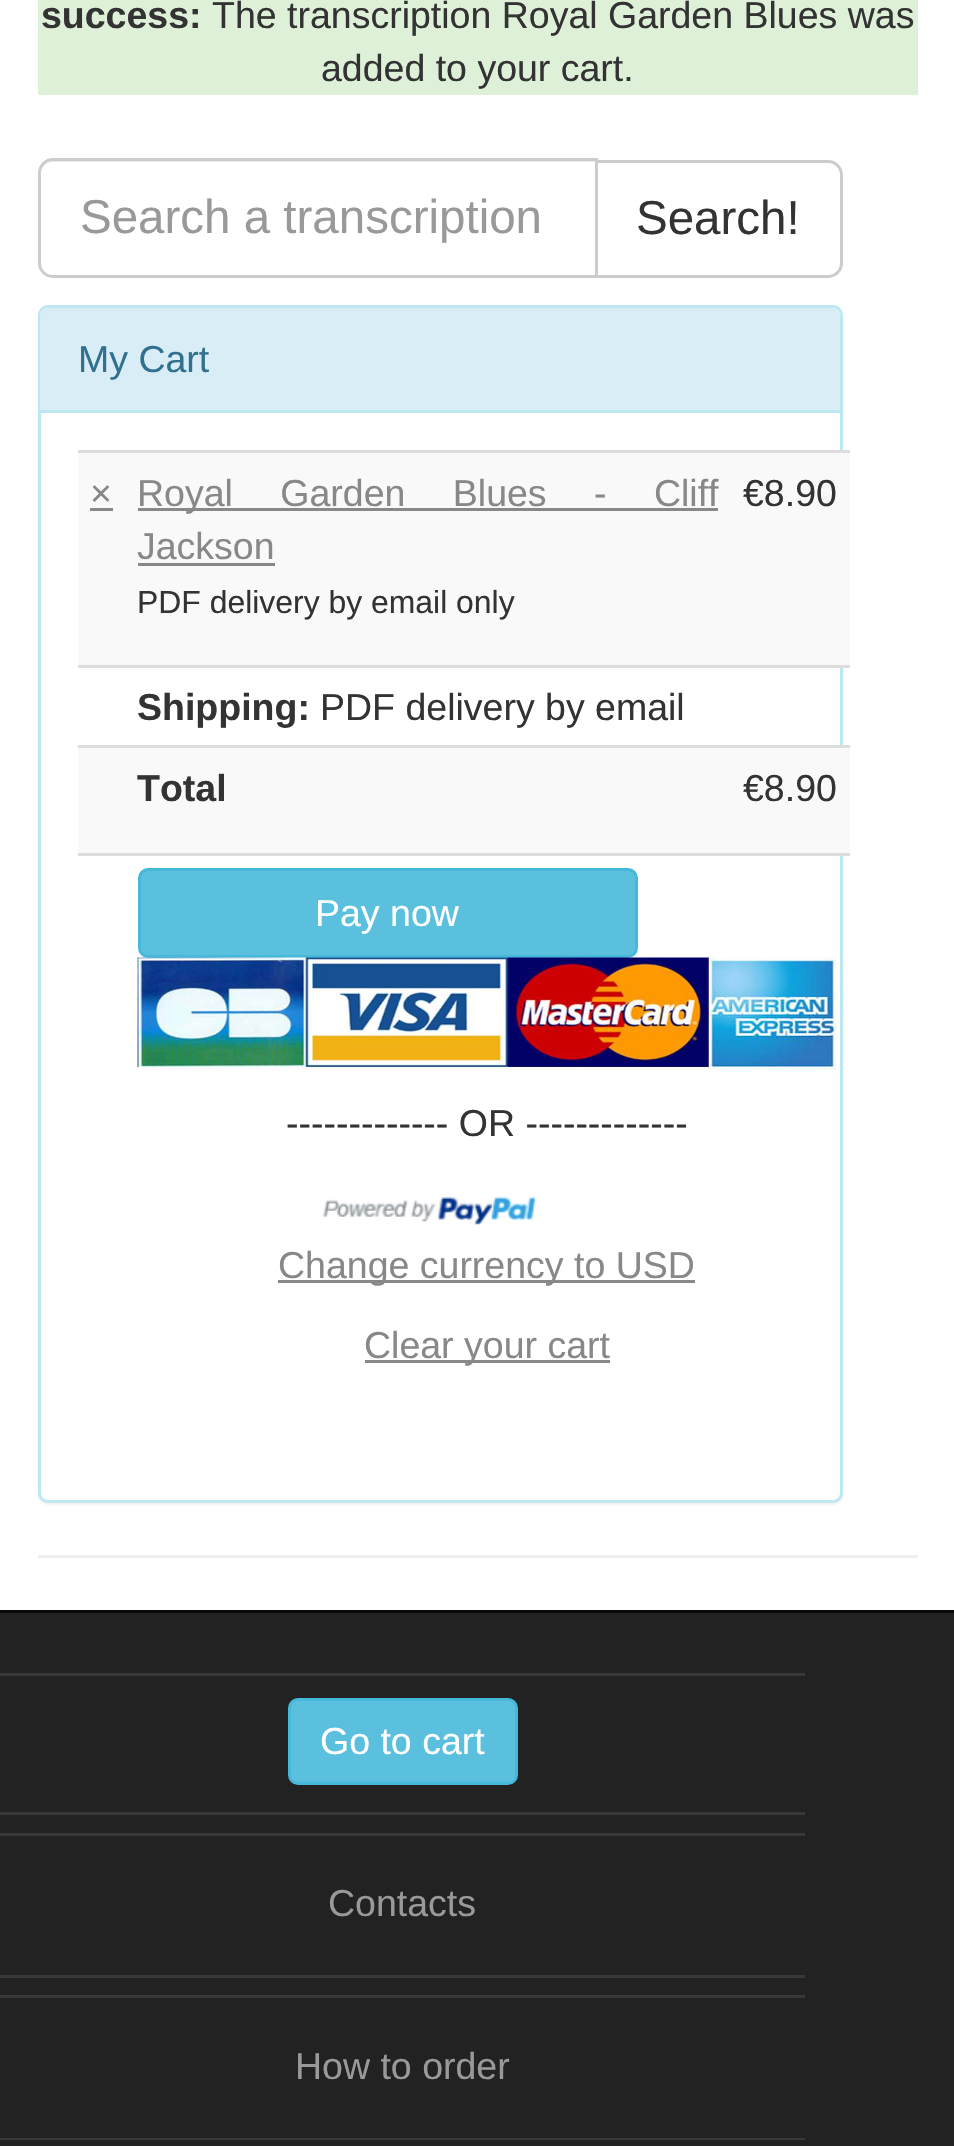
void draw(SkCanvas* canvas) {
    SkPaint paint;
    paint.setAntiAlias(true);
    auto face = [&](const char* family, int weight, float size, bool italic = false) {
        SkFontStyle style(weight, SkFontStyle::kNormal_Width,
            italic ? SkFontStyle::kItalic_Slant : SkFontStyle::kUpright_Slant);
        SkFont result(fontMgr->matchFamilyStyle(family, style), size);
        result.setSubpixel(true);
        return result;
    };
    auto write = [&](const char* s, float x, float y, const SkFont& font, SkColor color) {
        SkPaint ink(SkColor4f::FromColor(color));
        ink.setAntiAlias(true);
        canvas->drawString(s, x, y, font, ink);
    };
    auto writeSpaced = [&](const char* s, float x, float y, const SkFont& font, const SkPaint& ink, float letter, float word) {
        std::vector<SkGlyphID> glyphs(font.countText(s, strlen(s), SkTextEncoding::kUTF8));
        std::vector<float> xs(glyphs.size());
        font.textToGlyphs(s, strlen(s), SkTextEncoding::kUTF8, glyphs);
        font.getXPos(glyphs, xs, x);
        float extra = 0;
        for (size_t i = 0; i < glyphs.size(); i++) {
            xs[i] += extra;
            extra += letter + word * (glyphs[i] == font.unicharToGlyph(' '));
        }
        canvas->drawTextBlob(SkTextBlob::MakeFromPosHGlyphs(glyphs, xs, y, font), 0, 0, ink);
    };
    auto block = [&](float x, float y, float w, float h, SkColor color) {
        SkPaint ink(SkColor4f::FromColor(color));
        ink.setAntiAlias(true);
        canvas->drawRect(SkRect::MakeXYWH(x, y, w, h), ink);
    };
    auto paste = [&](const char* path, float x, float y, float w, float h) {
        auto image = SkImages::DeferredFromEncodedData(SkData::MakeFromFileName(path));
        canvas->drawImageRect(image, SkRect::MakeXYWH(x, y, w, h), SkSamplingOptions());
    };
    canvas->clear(SK_ColorWHITE);
    block(38, 0, 880, 95, SkColorSetRGB(223, 240, 216));
    auto kFont1 = face("Liberation Sans", 700, 37.5f);
    write("success:", 41, 28, kFont1, SkColorSetRGB(51, 51, 51));
    auto kFont2 = face("Liberation Sans", 400, 37.5f);
    write("The transcription Royal Garden Blues was", 212, 28, kFont2, SkColorSetRGB(51, 51, 51));
    write("added to your cart.", 321, 81, kFont2, SkColorSetRGB(51, 51, 51));
    paint.setStyle(SkPaint::kStroke_Style);
    paint.setStrokeWidth(3);
    paint.setColor(SkColorSetRGB(204, 204, 204));
    canvas->drawPath(SkPathBuilder().moveTo(596.5f, 161.5f).lineTo(828, 161.5f).cubicTo(835.5f, 161.5f, 841.5f, 167.5f, 841.5f, 175).lineTo(841.5f, 263).cubicTo(841.5f, 270.5f, 835.5f, 276.5f, 828, 276.5f).lineTo(596.5f, 276.5f).close().detach(), paint);
    paint.setStyle(SkPaint::kFill_Style);
    paint.setColor(SK_ColorWHITE);
    canvas->drawPath(SkPathBuilder().moveTo(53, 158).lineTo(598, 158).lineTo(598, 278).lineTo(53, 278).cubicTo(44.5f, 278, 38, 271.5f, 38, 263).lineTo(38, 173).cubicTo(38, 164.5f, 44.5f, 158, 53, 158).close().detach(), paint);
    paint.setColor(SkColorSetRGB(236, 236, 236));
    canvas->drawPath(SkPathBuilder().moveTo(52, 162).lineTo(595, 162).lineTo(595, 160).lineTo(53, 160).cubicTo(44, 160, 40, 167, 40, 175).cubicTo(40, 168, 46, 162, 52, 162).close().detach(), paint);
    paint.setStyle(SkPaint::kStroke_Style);
    paint.setColor(SkColorSetRGB(204, 204, 204));
    canvas->drawPath(SkPathBuilder().moveTo(53, 159.5f).lineTo(596.5f, 159.5f).lineTo(596.5f, 276.5f).lineTo(53, 276.5f).cubicTo(45.5f, 276.5f, 39.5f, 270.5f, 39.5f, 263).lineTo(39.5f, 173).cubicTo(39.5f, 165.5f, 45.5f, 159.5f, 53, 159.5f).close().detach(), paint);
    auto kFont3 = face("Liberation Sans", 400, 47.5f);
    write("Search a transcription", 80, 233, kFont3, SkColorSetRGB(153, 153, 153));
    write("Search!", 636, 234, kFont3, SkColorSetRGB(51, 51, 51));
    paint.setStyle(SkPaint::kFill_Style);
    paint.setColor(SkColorSetARGB(13, 0, 0, 0));
    paint.setMaskFilter(SkMaskFilter::MakeBlur(kNormal_SkBlurStyle, 1));
    canvas->drawRoundRect(SkRect::MakeXYWH(38, 308, 805, 1197), 10, 10, paint);
    paint.setMaskFilter(nullptr);
    paint.setColor(SK_ColorWHITE);
    canvas->drawRoundRect(SkRect::MakeXYWH(39.5f, 306.5f, 802, 1195), 8.5f, 8.5f, paint);
    paint.setStyle(SkPaint::kStroke_Style);
    paint.setColor(SkColorSetRGB(188, 232, 241));
    canvas->drawRoundRect(SkRect::MakeXYWH(39.5f, 306.5f, 802, 1195), 8.5f, 8.5f, paint);
    paint.setStyle(SkPaint::kFill_Style);
    paint.setColor(SkColorSetRGB(217, 237, 247));
    canvas->drawPath(SkPathBuilder().moveTo(48, 308).lineTo(832, 308).cubicTo(836.5f, 308, 840, 311.5f, 840, 316).lineTo(840, 413).lineTo(40, 413).lineTo(40, 316).cubicTo(40, 311.5f, 43.5f, 308, 48, 308).close().detach(), paint);
    block(40, 410, 800, 3, SkColorSetRGB(188, 232, 241));
    write("My Cart", 78, 372, kFont2, SkColorSetRGB(49, 112, 143));
    block(78, 453, 772, 212, SkColorSetRGB(249, 249, 249));
    write("×", 90, 506, kFont2, SkColorSetRGB(136, 136, 136));
    block(90, 508, 23, 3, SkColorSetRGB(136, 136, 136));
    block(138, 508, 580, 3, SkColorSetRGB(136, 136, 136));
    paint.setColor(SkColorSetRGB(136, 136, 136));
    writeSpaced("Royal Garden Blues - Cliff", 137, 506, kFont2, paint, 0, 37);
    write("Jackson", 137, 559, kFont2, SkColorSetRGB(136, 136, 136));
    block(138, 563, 137, 3, SkColorSetRGB(136, 136, 136));
    auto kFont4 = face("Liberation Sans", 400, 31.9f);
    write("PDF delivery by email only", 137, 613, kFont4, SkColorSetRGB(51, 51, 51));
    block(78, 450, 772, 3, SkColorSetRGB(221, 221, 221));
    write("€8.90", 743, 506, kFont2, SkColorSetRGB(51, 51, 51));
    block(78, 665, 772, 3, SkColorSetRGB(221, 221, 221));
    write("Shipping:", 137, 720, kFont1, SkColorSetRGB(51, 51, 51));
    write("PDF delivery by email", 320, 720, kFont2, SkColorSetRGB(51, 51, 51));
    block(78, 748, 772, 105, SkColorSetRGB(249, 249, 249));
    write("Total", 137, 801, kFont1, SkColorSetRGB(51, 51, 51));
    block(78, 745, 772, 3, SkColorSetRGB(221, 221, 221));
    write("€8.90", 743, 801, kFont2, SkColorSetRGB(51, 51, 51));
    block(78, 853, 772, 3, SkColorSetRGB(221, 221, 221));
    paint.setColor(SkColorSetRGB(91, 192, 222));
    canvas->drawRoundRect(SkRect::MakeXYWH(139.5f, 869.5f, 497, 87), 8.5f, 8.5f, paint);
    paint.setStyle(SkPaint::kStroke_Style);
    paint.setColor(SkColorSetRGB(70, 184, 218));
    canvas->drawRoundRect(SkRect::MakeXYWH(139.5f, 869.5f, 497, 87), 8.5f, 8.5f, paint);
    write("Pay now", 315, 926, kFont2, SK_ColorWHITE);
    paste("pic1.png", 137, 957, 701, 113);
    write("------------- OR -------------", 286, 1136, kFont2, SkColorSetRGB(51, 51, 51));
    paste("pic2.png", 322, 1196, 214, 29);
    block(278, 1280, 417, 3, SkColorSetRGB(136, 136, 136));
    write("Change currency to USD", 278, 1278, kFont2, SkColorSetRGB(136, 136, 136));
    block(365, 1360, 245, 3, SkColorSetRGB(136, 136, 136));
    write("Clear your cart", 364, 1358, kFont2, SkColorSetRGB(136, 136, 136));
    block(38, 1555, 880, 3, SkColorSetRGB(238, 238, 238));
    block(0, 1613, 954, 533, SkColorSetRGB(34, 34, 34));
    block(0, 1610, 954, 3, SkColorSetRGB(8, 8, 8));
    block(0, 1812, 805, 3, SkColorSetRGB(56, 56, 56));
    block(0, 1673, 805, 3, SkColorSetRGB(56, 56, 56));
    paint.setStyle(SkPaint::kFill_Style);
    paint.setColor(SkColorSetRGB(91, 192, 222));
    canvas->drawRoundRect(SkRect::MakeXYWH(289.5f, 1699.5f, 227, 84), 8.5f, 8.5f, paint);
    paint.setStyle(SkPaint::kStroke_Style);
    paint.setColor(SkColorSetRGB(70, 184, 218));
    canvas->drawRoundRect(SkRect::MakeXYWH(289.5f, 1699.5f, 227, 84), 8.5f, 8.5f, paint);
    write("Go to cart", 320, 1754, kFont2, SK_ColorWHITE);
    block(0, 1975, 805, 3, SkColorSetRGB(56, 56, 56));
    block(0, 1833, 805, 3, SkColorSetRGB(56, 56, 56));
    write("Contacts", 328, 1916, kFont2, SkColorSetRGB(153, 153, 153));
    block(0, 2138, 805, 2, SkColorSetRGB(56, 56, 56));
    block(0, 1995, 805, 3, SkColorSetRGB(56, 56, 56));
    write("How to order", 295, 2079, kFont2, SkColorSetRGB(153, 153, 153));
}
